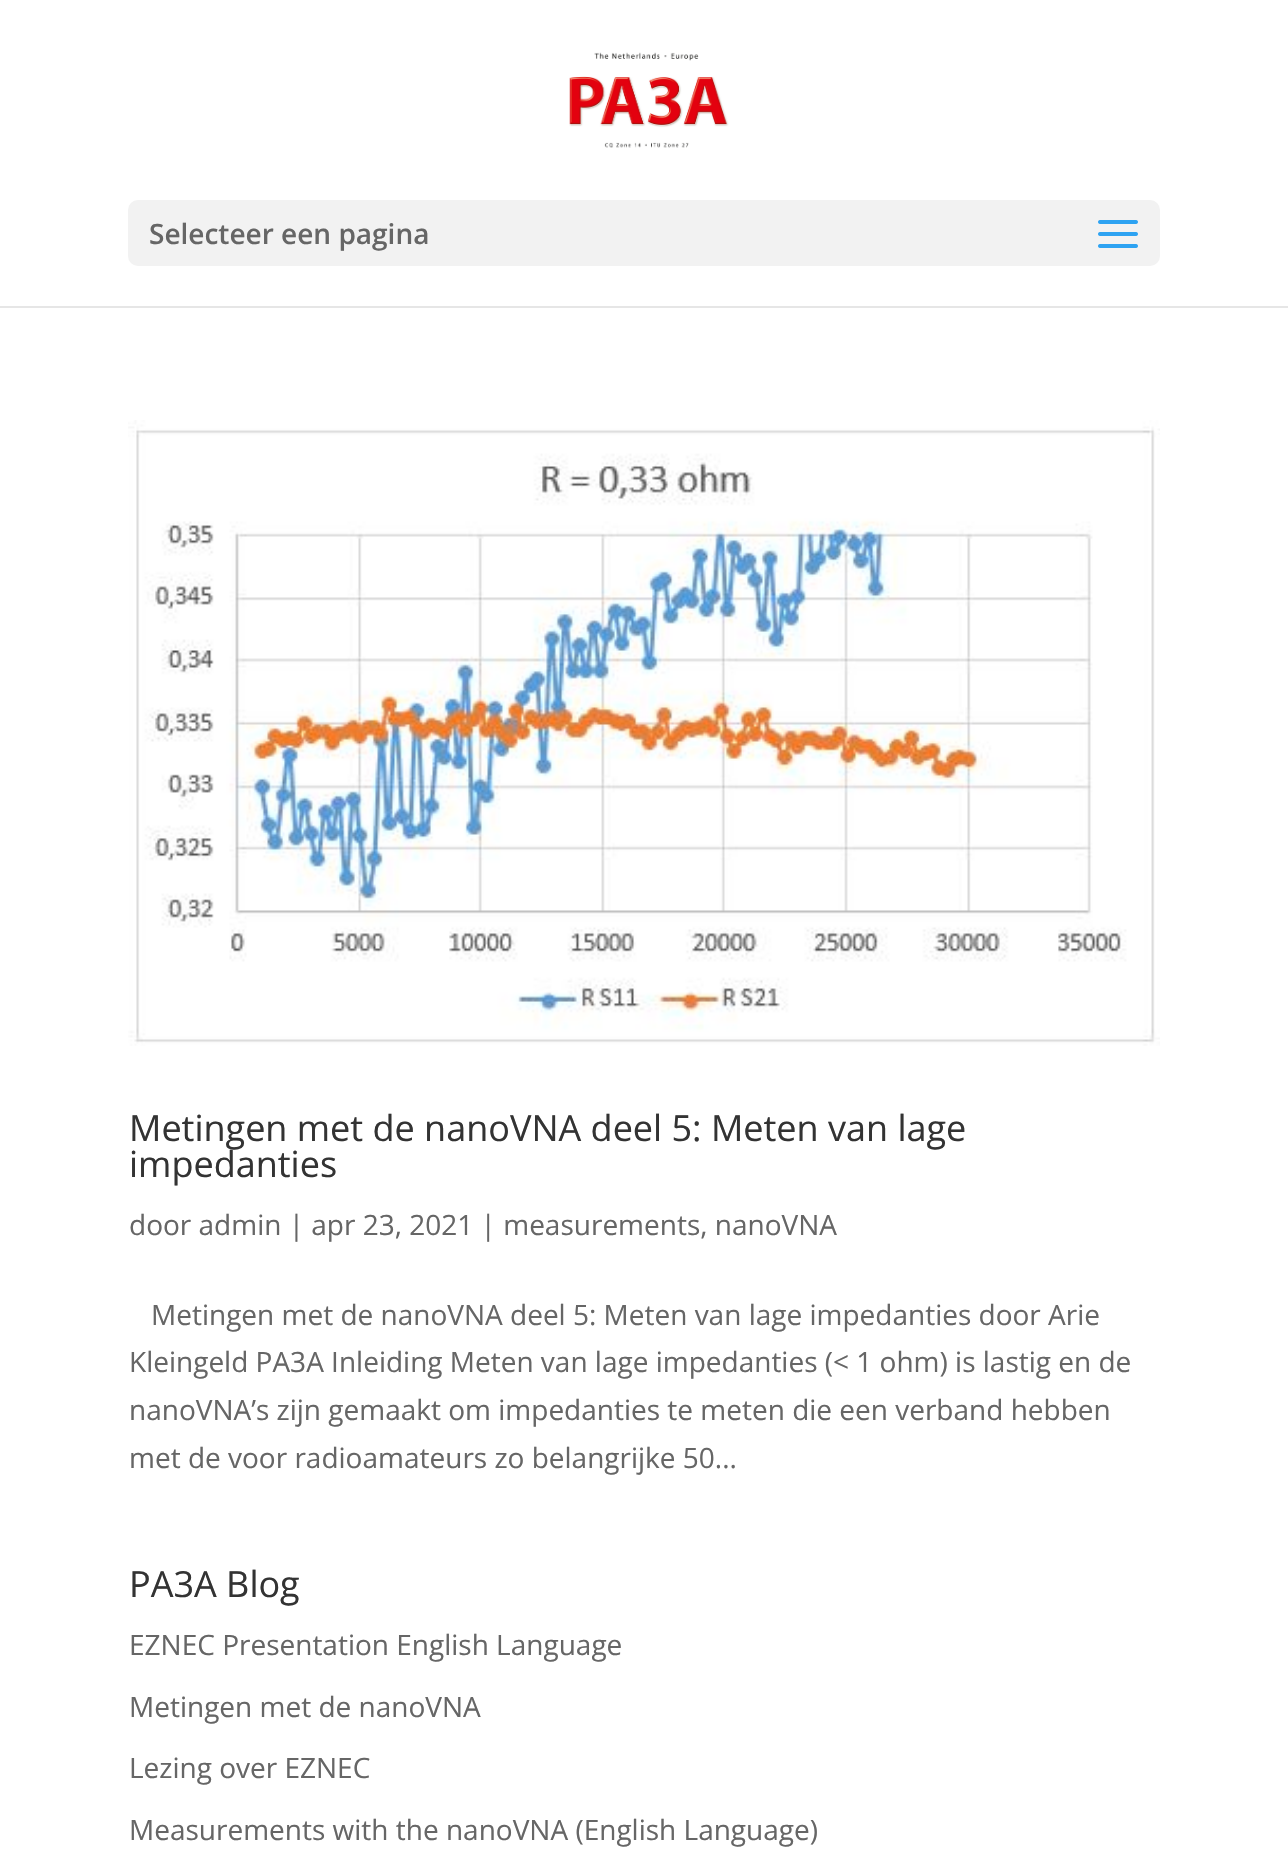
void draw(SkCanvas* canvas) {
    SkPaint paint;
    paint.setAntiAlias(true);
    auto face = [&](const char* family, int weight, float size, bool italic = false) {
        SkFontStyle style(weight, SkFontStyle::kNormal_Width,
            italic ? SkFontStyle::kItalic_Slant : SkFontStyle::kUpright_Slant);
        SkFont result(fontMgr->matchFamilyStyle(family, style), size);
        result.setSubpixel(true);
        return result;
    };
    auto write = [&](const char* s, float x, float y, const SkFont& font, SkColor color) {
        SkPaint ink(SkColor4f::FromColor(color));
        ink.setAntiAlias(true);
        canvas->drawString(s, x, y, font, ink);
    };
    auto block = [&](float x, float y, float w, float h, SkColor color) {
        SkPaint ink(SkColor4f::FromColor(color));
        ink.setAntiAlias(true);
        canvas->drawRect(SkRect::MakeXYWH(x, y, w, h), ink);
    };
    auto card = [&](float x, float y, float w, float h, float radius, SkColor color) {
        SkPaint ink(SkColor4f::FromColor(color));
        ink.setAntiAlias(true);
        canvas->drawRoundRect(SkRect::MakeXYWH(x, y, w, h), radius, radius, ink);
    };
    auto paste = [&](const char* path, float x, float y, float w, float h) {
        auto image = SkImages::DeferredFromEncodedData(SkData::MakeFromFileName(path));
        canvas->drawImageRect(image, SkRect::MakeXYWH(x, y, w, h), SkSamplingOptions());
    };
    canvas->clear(SK_ColorWHITE);
    block(0, 306, 1288, 2, SkColorSetRGB(230, 230, 230));
    paste("pic1.png", 569, 52, 160, 96);
    card(128, 200, 1032, 66, 10, SkColorSetRGB(242, 242, 242));
    auto kFont1 = face("Open Sans", 600, 28);
    write("Selecteer een pagina", 149, 244, kFont1, SkColorSetRGB(102, 102, 102));
    paste("pic2.png", 1098, 220, 40, 28);
    paste("pic3.png", 128, 420, 1032, 626);
    auto kFont2 = face("Open Sans", 400, 36);
    write("Metingen met de nanoVNA deel 5: Meten van lage", 129, 1141, kFont2, SkColorSetRGB(51, 51, 51));
    write("impedanties", 129, 1177, kFont2, SkColorSetRGB(51, 51, 51));
    auto kFont3 = face("Open Sans", 400, 28);
    write("door admin | apr 23, 2021 | measurements, nanoVNA", 129, 1235, kFont3, SkColorSetRGB(102, 102, 102));
    write("Metingen met de nanoVNA deel 5: Meten van lage impedanties door Arie", 151, 1325, kFont3, SkColorSetRGB(102, 102, 102));
    write("Kleingeld PA3A Inleiding Meten van lage impedanties (< 1 ohm) is lastig en de", 129, 1372, kFont3, SkColorSetRGB(102, 102, 102));
    write("nanoVNA’s zijn gemaakt om impedanties te meten die een verband hebben", 129, 1420, kFont3, SkColorSetRGB(102, 102, 102));
    write("met de voor radioamateurs zo belangrijke 50...", 129, 1468, kFont3, SkColorSetRGB(102, 102, 102));
    write("PA3A Blog", 129, 1597, kFont2, SkColorSetRGB(51, 51, 51));
    write("EZNEC Presentation English Language", 129, 1655, kFont3, SkColorSetRGB(102, 102, 102));
    write("Metingen met de nanoVNA", 129, 1717, kFont3, SkColorSetRGB(102, 102, 102));
    write("Lezing over EZNEC", 129, 1778, kFont3, SkColorSetRGB(102, 102, 102));
    write("Measurements with the nanoVNA (English Language)", 129, 1840, kFont3, SkColorSetRGB(102, 102, 102));
}
